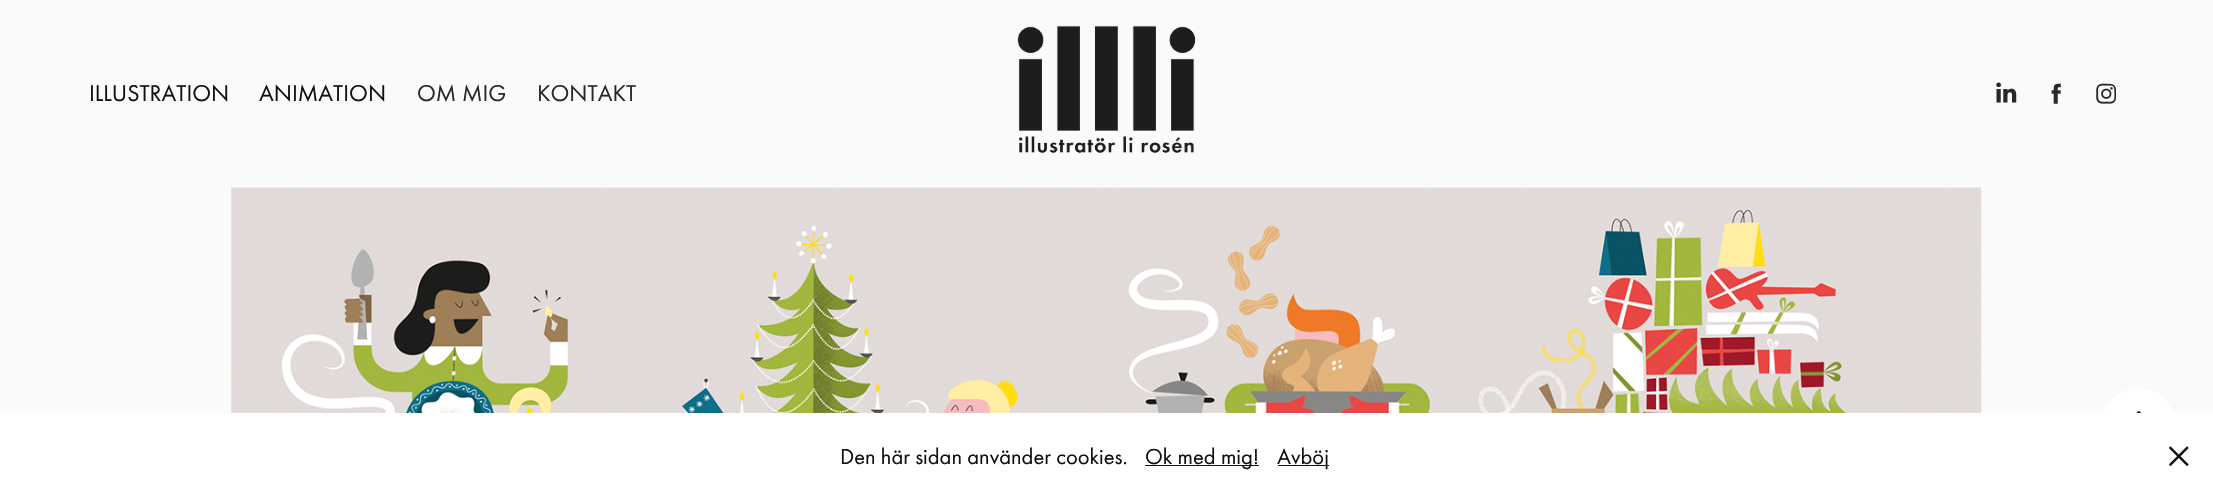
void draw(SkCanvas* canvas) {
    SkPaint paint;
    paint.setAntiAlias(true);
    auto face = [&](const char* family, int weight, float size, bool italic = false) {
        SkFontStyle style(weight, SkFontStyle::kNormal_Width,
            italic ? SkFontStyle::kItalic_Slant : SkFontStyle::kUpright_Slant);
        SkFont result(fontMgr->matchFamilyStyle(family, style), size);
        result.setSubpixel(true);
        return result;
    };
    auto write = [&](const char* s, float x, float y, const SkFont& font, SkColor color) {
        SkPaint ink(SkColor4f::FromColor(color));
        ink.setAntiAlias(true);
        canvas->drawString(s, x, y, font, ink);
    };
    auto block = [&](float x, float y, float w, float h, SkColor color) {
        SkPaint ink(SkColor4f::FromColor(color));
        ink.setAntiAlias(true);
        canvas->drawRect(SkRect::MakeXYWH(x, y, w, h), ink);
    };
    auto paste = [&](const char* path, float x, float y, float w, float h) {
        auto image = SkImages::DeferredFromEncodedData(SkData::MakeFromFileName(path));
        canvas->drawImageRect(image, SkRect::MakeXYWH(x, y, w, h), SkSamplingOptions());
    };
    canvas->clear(SkColorSetRGB(250, 250, 250));
    auto kFont1 = face("Futura PT", 400, 23.75f);
    write("ILLUSTRATION", 89, 101, kFont1, SkColorSetRGB(17, 17, 17));
    write("ANIMATION", 259, 101, kFont1, SkColorSetRGB(17, 17, 17));
    write("OM MIG", 417, 101, kFont1, SkColorSetRGB(40, 40, 40));
    write("KONTAKT", 537, 101, kFont1, SkColorSetRGB(40, 40, 40));
    paste("pic1.png", 1017, 25, 178, 128);
    paste("pic2.png", 1996, 82, 21, 21);
    paste("pic3.png", 2051, 83, 10, 21);
    paste("pic4.png", 2096, 83, 20, 21);
    paste("pic5.png", 231, 187, 1751, 226);
    paint.setColor(SK_ColorWHITE);
    canvas->drawCircle(2138.5f, 425.5f, 37.5f, paint);
    paste("pic6.png", 2136, 411, 5, 2);
    block(0, 413, 2213, 87, SK_ColorWHITE);
    auto kFont2 = face("Futura PT", 400, 22.5f);
    write("Den här sidan använder cookies.", 840, 464, kFont2, SkColorSetRGB(17, 17, 17));
    block(1145, 465, 114, 1, SkColorSetRGB(17, 17, 17));
    write("Ok med mig!", 1145, 464, kFont2, SkColorSetRGB(17, 17, 17));
    block(1278, 465, 51, 1, SkColorSetRGB(17, 17, 17));
    write("Avböj", 1277, 464, kFont2, SkColorSetRGB(17, 17, 17));
    paste("pic7.png", 2169, 446, 20, 20);
}
